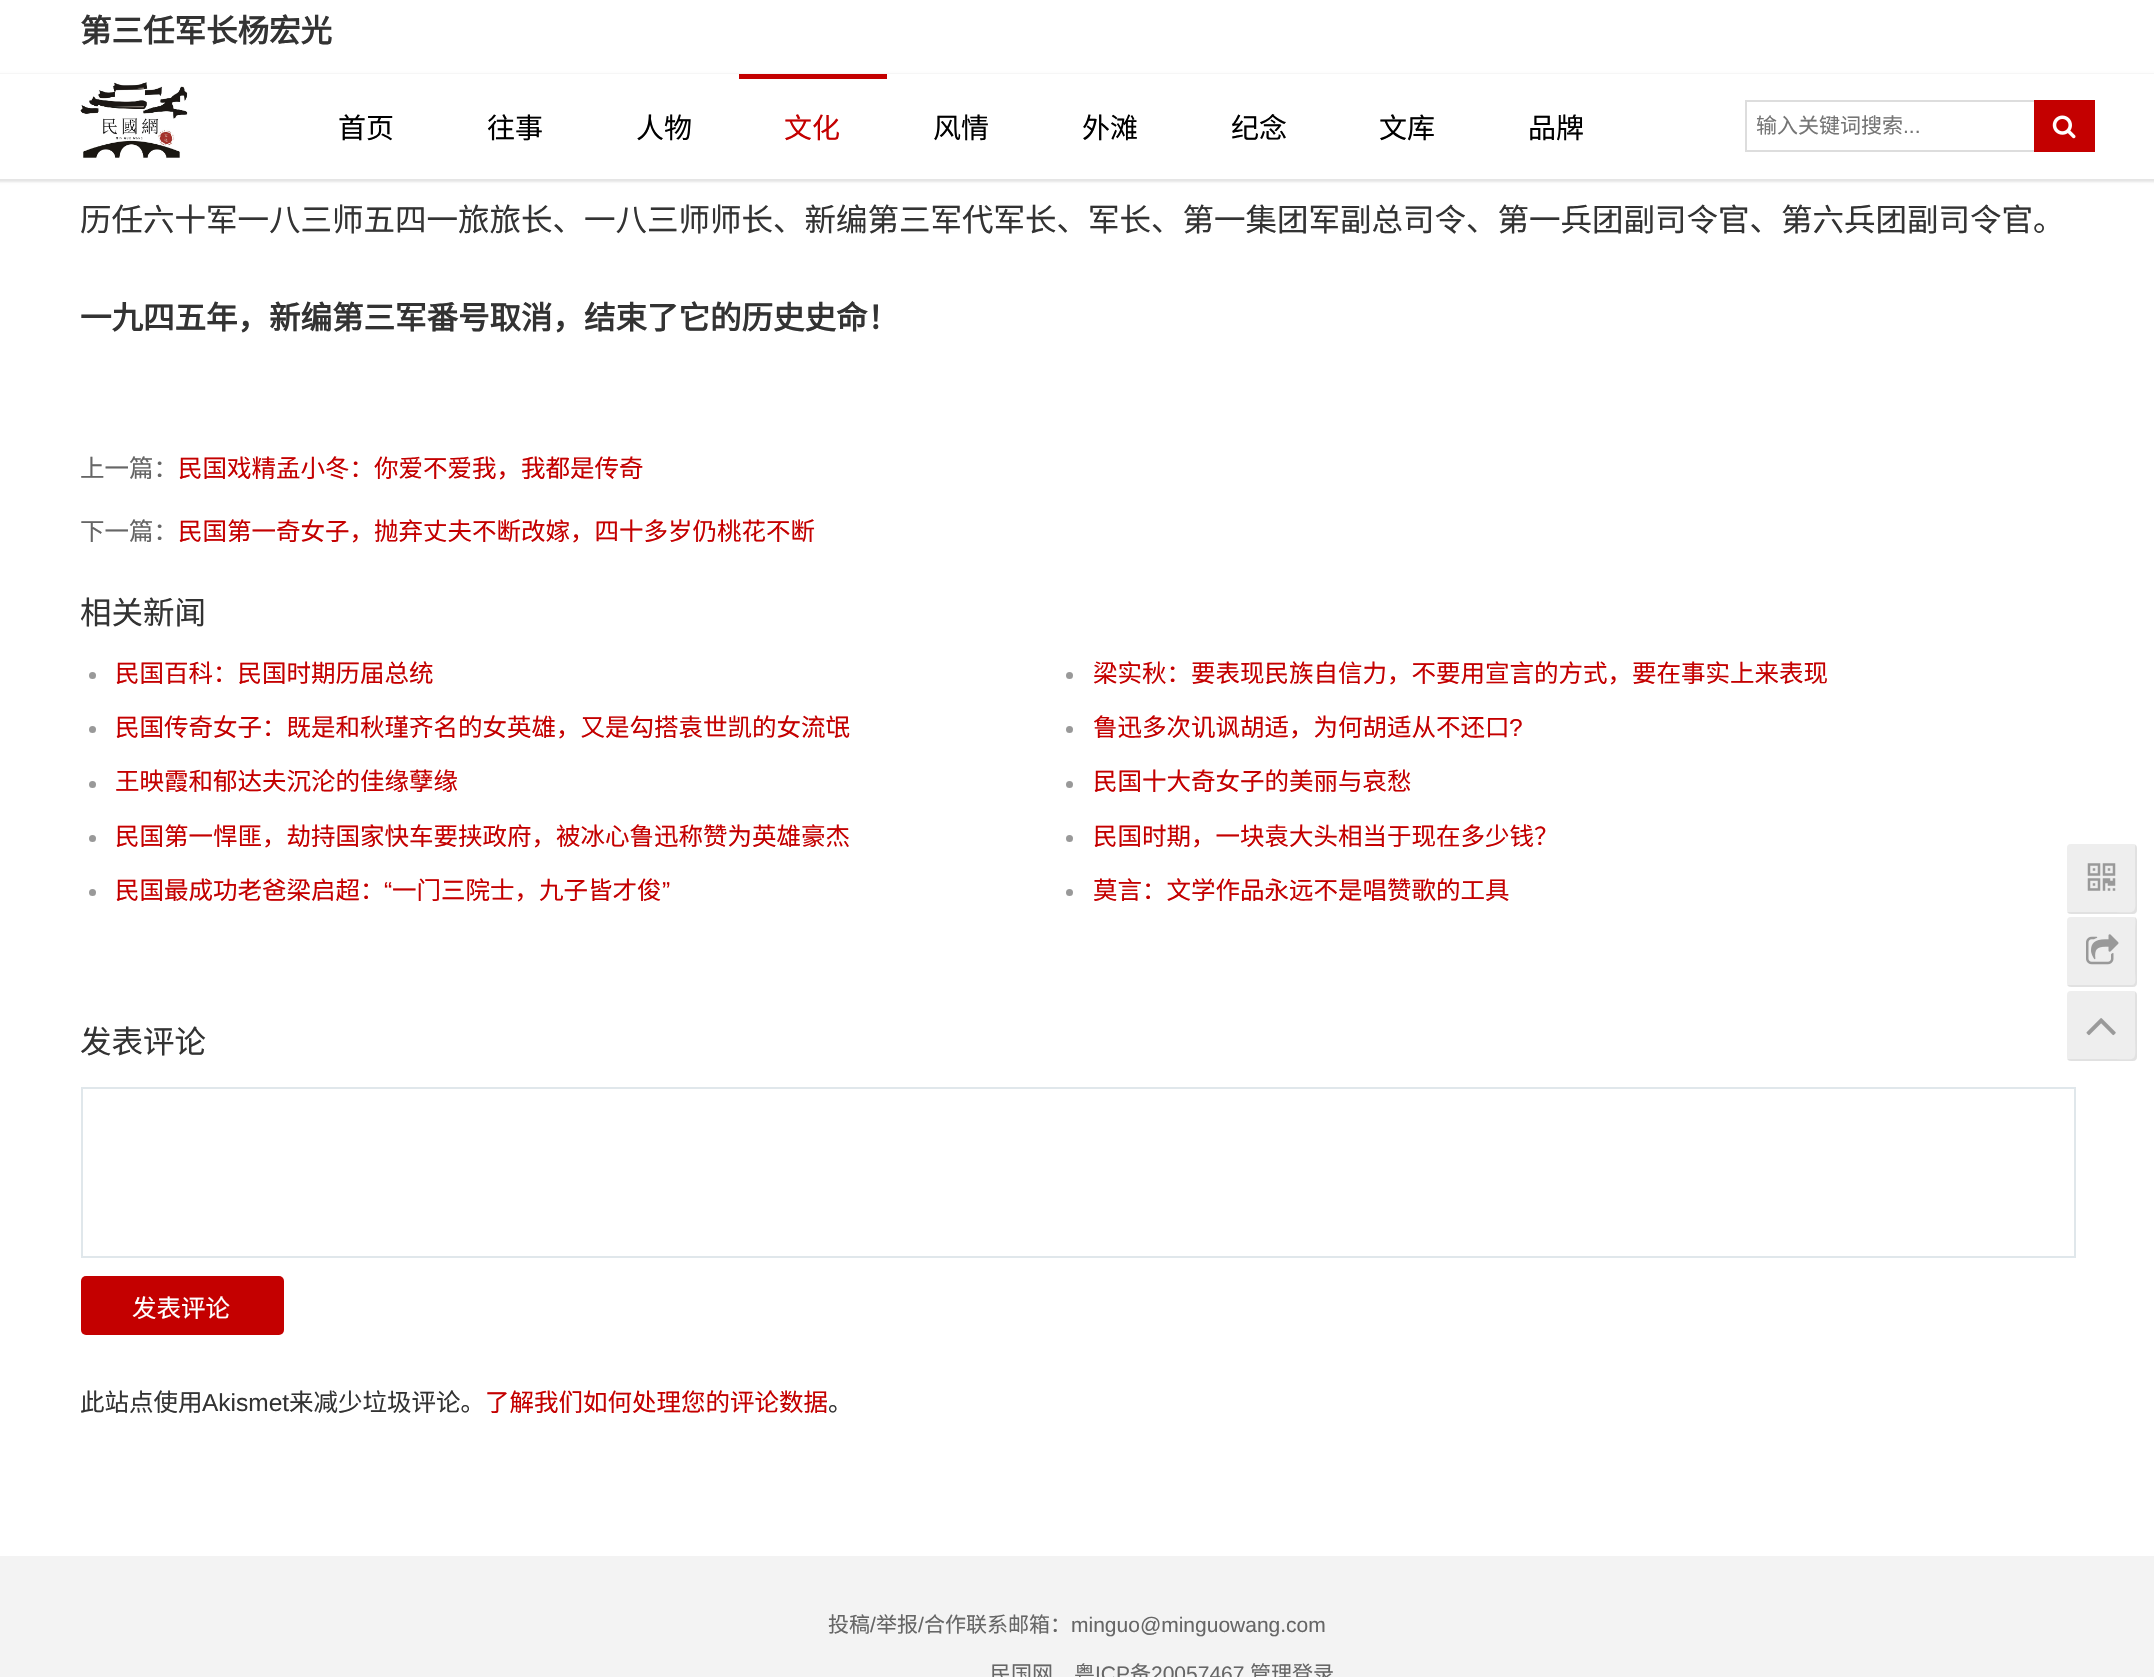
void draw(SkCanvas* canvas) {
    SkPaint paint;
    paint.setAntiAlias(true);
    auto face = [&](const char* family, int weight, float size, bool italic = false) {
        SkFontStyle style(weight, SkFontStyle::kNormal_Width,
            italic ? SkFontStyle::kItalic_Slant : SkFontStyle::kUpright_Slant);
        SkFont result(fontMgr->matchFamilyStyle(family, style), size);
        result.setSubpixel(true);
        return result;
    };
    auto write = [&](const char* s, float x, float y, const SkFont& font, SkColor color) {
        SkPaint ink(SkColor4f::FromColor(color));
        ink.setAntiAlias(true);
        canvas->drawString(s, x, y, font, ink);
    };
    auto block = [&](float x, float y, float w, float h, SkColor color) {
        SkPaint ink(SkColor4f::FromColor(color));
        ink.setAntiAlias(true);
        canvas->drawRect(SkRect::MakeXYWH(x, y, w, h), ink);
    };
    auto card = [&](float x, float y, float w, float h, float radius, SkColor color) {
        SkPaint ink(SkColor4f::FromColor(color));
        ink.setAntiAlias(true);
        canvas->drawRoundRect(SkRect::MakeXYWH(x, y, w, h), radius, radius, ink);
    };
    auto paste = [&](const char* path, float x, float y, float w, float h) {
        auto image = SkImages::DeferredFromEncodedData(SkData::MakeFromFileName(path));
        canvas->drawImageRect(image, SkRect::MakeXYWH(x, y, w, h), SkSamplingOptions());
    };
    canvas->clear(SK_ColorWHITE);
    auto kFont1 = face("Noto Sans CJK SC", 700, 31.5f);
    write("第三任军长杨宏光", 80, 42, kFont1, SkColorSetRGB(51, 51, 51));
    block(80, 97, 1, 57, SkColorSetRGB(239, 239, 239));
    auto kFont2 = face("Noto Sans CJK SC", 400, 31.5f);
    write("历任六十军一八三师五四一旅旅长、一八三师师长、新编第三军代军长、军长、第一集团军副总司令、第一兵团副司令官、第六兵团副司令官。", 80, 231, kFont2, SkColorSetRGB(51, 51, 51));
    write("一九四五年，新编第三军番号取消，结束了它的历史史命！", 80, 329, kFont1, SkColorSetRGB(51, 51, 51));
    auto kFont3 = face("Noto Sans CJK SC", 400, 24.5f);
    write("上一篇：", 80, 477, kFont3, SkColorSetRGB(102, 102, 102));
    write("民国戏精孟小冬：你爱不爱我，我都是传奇", 178, 477, kFont3, SkColorSetRGB(196, 0, 0));
    write("下一篇：", 80, 540, kFont3, SkColorSetRGB(102, 102, 102));
    write("民国第一奇女子，抛弃丈夫不断改嫁，四十多岁仍桃花不断", 178, 540, kFont3, SkColorSetRGB(196, 0, 0));
    write("相关新闻", 80, 624, kFont2, SkColorSetRGB(51, 51, 51));
    paint.setColor(SkColorSetRGB(153, 153, 153));
    canvas->drawCircle(92.5f, 675.5f, 3.5f, paint);
    write("民国百科：民国时期历届总统", 115, 682, kFont3, SkColorSetRGB(196, 0, 0));
    canvas->drawCircle(1069.5f, 675.5f, 3.5f, paint);
    write("梁实秋：要表现民族自信力，不要用宣言的方式，要在事实上来表现", 1093, 682, kFont3, SkColorSetRGB(196, 0, 0));
    canvas->drawCircle(92.5f, 729.5f, 3.5f, paint);
    write("民国传奇女子：既是和秋瑾齐名的女英雄，又是勾搭袁世凯的女流氓", 115, 736, kFont3, SkColorSetRGB(196, 0, 0));
    canvas->drawCircle(1069.5f, 729.5f, 3.5f, paint);
    write("鲁迅多次讥讽胡适，为何胡适从不还口", 1093, 736, kFont3, SkColorSetRGB(196, 0, 0));
    auto kFont4 = face("Liberation Sans", 400, 24.5f);
    write("?", 1509, 736, kFont4, SkColorSetRGB(196, 0, 0));
    canvas->drawCircle(92.5f, 784.5f, 3.5f, paint);
    write("王映霞和郁达夫沉沦的佳缘孽缘", 115, 790, kFont3, SkColorSetRGB(196, 0, 0));
    canvas->drawCircle(1069.5f, 784.5f, 3.5f, paint);
    write("民国十大奇女子的美丽与哀愁", 1093, 790, kFont3, SkColorSetRGB(196, 0, 0));
    canvas->drawCircle(92.5f, 838.5f, 3.5f, paint);
    write("民国第一悍匪，劫持国家快车要挟政府，被冰心鲁迅称赞为英雄豪杰", 115, 845, kFont3, SkColorSetRGB(196, 0, 0));
    canvas->drawCircle(1069.5f, 838.5f, 3.5f, paint);
    write("民国时期，一块袁大头相当于现在多少钱？", 1093, 845, kFont3, SkColorSetRGB(196, 0, 0));
    canvas->drawCircle(92.5f, 892.5f, 3.5f, paint);
    write("民国最成功老爸梁启超：", 115, 899, kFont3, SkColorSetRGB(196, 0, 0));
    write("“", 384, 899, kFont4, SkColorSetRGB(196, 0, 0));
    write("一门三院士，九子皆才俊", 392, 899, kFont3, SkColorSetRGB(196, 0, 0));
    write("”", 662, 899, kFont4, SkColorSetRGB(196, 0, 0));
    canvas->drawCircle(1069.5f, 892.5f, 3.5f, paint);
    write("莫言：文学作品永远不是唱赞歌的工具", 1093, 899, kFont3, SkColorSetRGB(196, 0, 0));
    write("发表评论", 80, 1053, kFont2, SkColorSetRGB(51, 51, 51));
    paint.setStyle(SkPaint::kStroke_Style);
    paint.setStrokeWidth(2);
    paint.setColor(SkColorSetRGB(224, 231, 235));
    canvas->drawRect(SkRect::MakeXYWH(82, 1088, 1993, 169), paint);
    card(81, 1276, 203, 59, 5, SkColorSetRGB(196, 0, 0));
    write("发表评论", 132, 1317, kFont3, SK_ColorWHITE);
    write("此站点使用", 80, 1411, kFont3, SkColorSetRGB(51, 51, 51));
    write("Akismet", 202, 1411, kFont4, SkColorSetRGB(51, 51, 51));
    write("来减少垃圾评论。", 289, 1411, kFont3, SkColorSetRGB(51, 51, 51));
    write("了解我们如何处理您的评论数据", 485, 1411, kFont3, SkColorSetRGB(196, 0, 0));
    write("。", 828, 1411, kFont3, SkColorSetRGB(51, 51, 51));
    canvas->save();
    canvas->clipPath(SkPathBuilder(SkPathFillType::kEvenOdd).moveTo(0, 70).lineTo(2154, 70).lineTo(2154, 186).lineTo(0, 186).close().moveTo(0, 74).lineTo(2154, 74).lineTo(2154, 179).lineTo(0, 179).close().detach(), true);
    paint.setStyle(SkPaint::kFill_Style);
    paint.setColor(SkColorSetARGB(26, 0, 0, 0));
    paint.setMaskFilter(SkMaskFilter::MakeBlur(kNormal_SkBlurStyle, 1));
    canvas->drawRect(SkRect::MakeXYWH(-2, 74, 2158, 108), paint);
    paint.setMaskFilter(nullptr);
    canvas->restore();
    block(0, 97, 2154, 82, SkColorSetARGB(250, 255, 255, 255));
    paste("pic1.png", 80, 82, 108, 76);
    auto kFont5 = face("Noto Sans CJK SC", 400, 28);
    write("首页", 338, 138, kFont5, SK_ColorBLACK);
    write("往事", 487, 138, kFont5, SK_ColorBLACK);
    write("人物", 636, 138, kFont5, SK_ColorBLACK);
    block(739, 74, 148, 5, SkColorSetRGB(196, 0, 0));
    write("文化", 784, 138, kFont5, SkColorSetRGB(196, 0, 0));
    write("风情", 933, 138, kFont5, SK_ColorBLACK);
    write("外滩", 1082, 138, kFont5, SK_ColorBLACK);
    write("纪念", 1231, 138, kFont5, SK_ColorBLACK);
    write("文库", 1379, 138, kFont5, SK_ColorBLACK);
    write("品牌", 1528, 138, kFont5, SK_ColorBLACK);
    paint.setStyle(SkPaint::kStroke_Style);
    paint.setColor(SkColorSetRGB(221, 221, 221));
    canvas->drawRect(SkRect::MakeXYWH(1746, 101, 348, 50), paint);
    auto kFont6 = face("Noto Sans CJK SC", 400, 21);
    write("输入关键词搜索", 1756, 133, kFont6, SkColorSetRGB(117, 117, 117));
    auto kFont7 = face("Liberation Sans", 400, 21);
    write("...", 1903, 133, kFont7, SkColorSetRGB(117, 117, 117));
    block(2034, 100, 61, 52, SkColorSetRGB(196, 0, 0));
    paste("pic2.png", 2052, 115, 24, 24);
    card(2067, 844, 70, 70, 4, SkColorSetRGB(238, 238, 238));
    paint.setStyle(SkPaint::kFill_Style);
    paint.setColor(SkColorSetARGB(13, 0, 0, 0));
    canvas->drawPath(SkPathBuilder().moveTo(2067, 912).cubicTo(2068, 913, 2069, 914, 2071, 914).lineTo(2133, 914).cubicTo(2135, 914, 2137, 912, 2137, 910).lineTo(2137, 848).cubicTo(2137, 847, 2136, 845, 2135, 845).lineTo(2135, 887).cubicTo(2135, 917, 2140, 912, 2111, 912).close().detach(), paint);
    paste("pic3.png", 2087, 863, 29, 28);
    card(2067, 917, 70, 70, 4, SkColorSetRGB(238, 238, 238));
    canvas->drawPath(SkPathBuilder().moveTo(2067, 985).cubicTo(2068, 986, 2069, 987, 2071, 987).lineTo(2133, 987).cubicTo(2135, 987, 2137, 985, 2137, 983).lineTo(2137, 921).cubicTo(2137, 919, 2136, 918, 2135, 917).cubicTo(2136, 921, 2135, 925, 2135, 930).lineTo(2135, 972).cubicTo(2135, 977, 2137, 985, 2132, 985).close().detach(), paint);
    paste("pic4.png", 2086, 934, 33, 31);
    card(2067, 991, 70, 70, 4, SkColorSetRGB(238, 238, 238));
    paint.setColor(SkColorSetARGB(13, 3, 3, 3));
    canvas->drawPath(SkPathBuilder().moveTo(2067, 1059).cubicTo(2068, 1060, 2069, 1061, 2071, 1061).lineTo(2133, 1061).cubicTo(2135, 1061, 2137, 1059, 2137, 1057).lineTo(2137, 995).cubicTo(2137, 994, 2136, 992, 2135, 992).lineTo(2135, 1034).cubicTo(2135, 1064, 2140, 1059, 2111, 1059).close().detach(), paint);
    paste("pic5.png", 2086, 1018, 30, 18);
    block(0, 1556, 2154, 121, SkColorSetRGB(243, 243, 243));
    write("投稿", 828, 1632, kFont6, SkColorSetRGB(102, 102, 102));
    write("/", 870, 1632, kFont7, SkColorSetRGB(102, 102, 102));
    write("举报", 876, 1632, kFont6, SkColorSetRGB(102, 102, 102));
    write("/", 918, 1632, kFont7, SkColorSetRGB(102, 102, 102));
    write("合作联系邮箱：", 924, 1632, kFont6, SkColorSetRGB(102, 102, 102));
    write("minguo@minguowang.com", 1071, 1632, kFont7, SkColorSetRGB(102, 102, 102));
    write("民国网　粤", 990, 1681, kFont6, SkColorSetRGB(102, 102, 102));
    write("ICP", 1095, 1681, kFont7, SkColorSetRGB(102, 102, 102));
    write("备", 1130, 1681, kFont6, SkColorSetRGB(102, 102, 102));
    write("20057467", 1151, 1681, kFont7, SkColorSetRGB(102, 102, 102));
    write("管理登录", 1250, 1681, kFont6, SkColorSetRGB(102, 102, 102));
}
